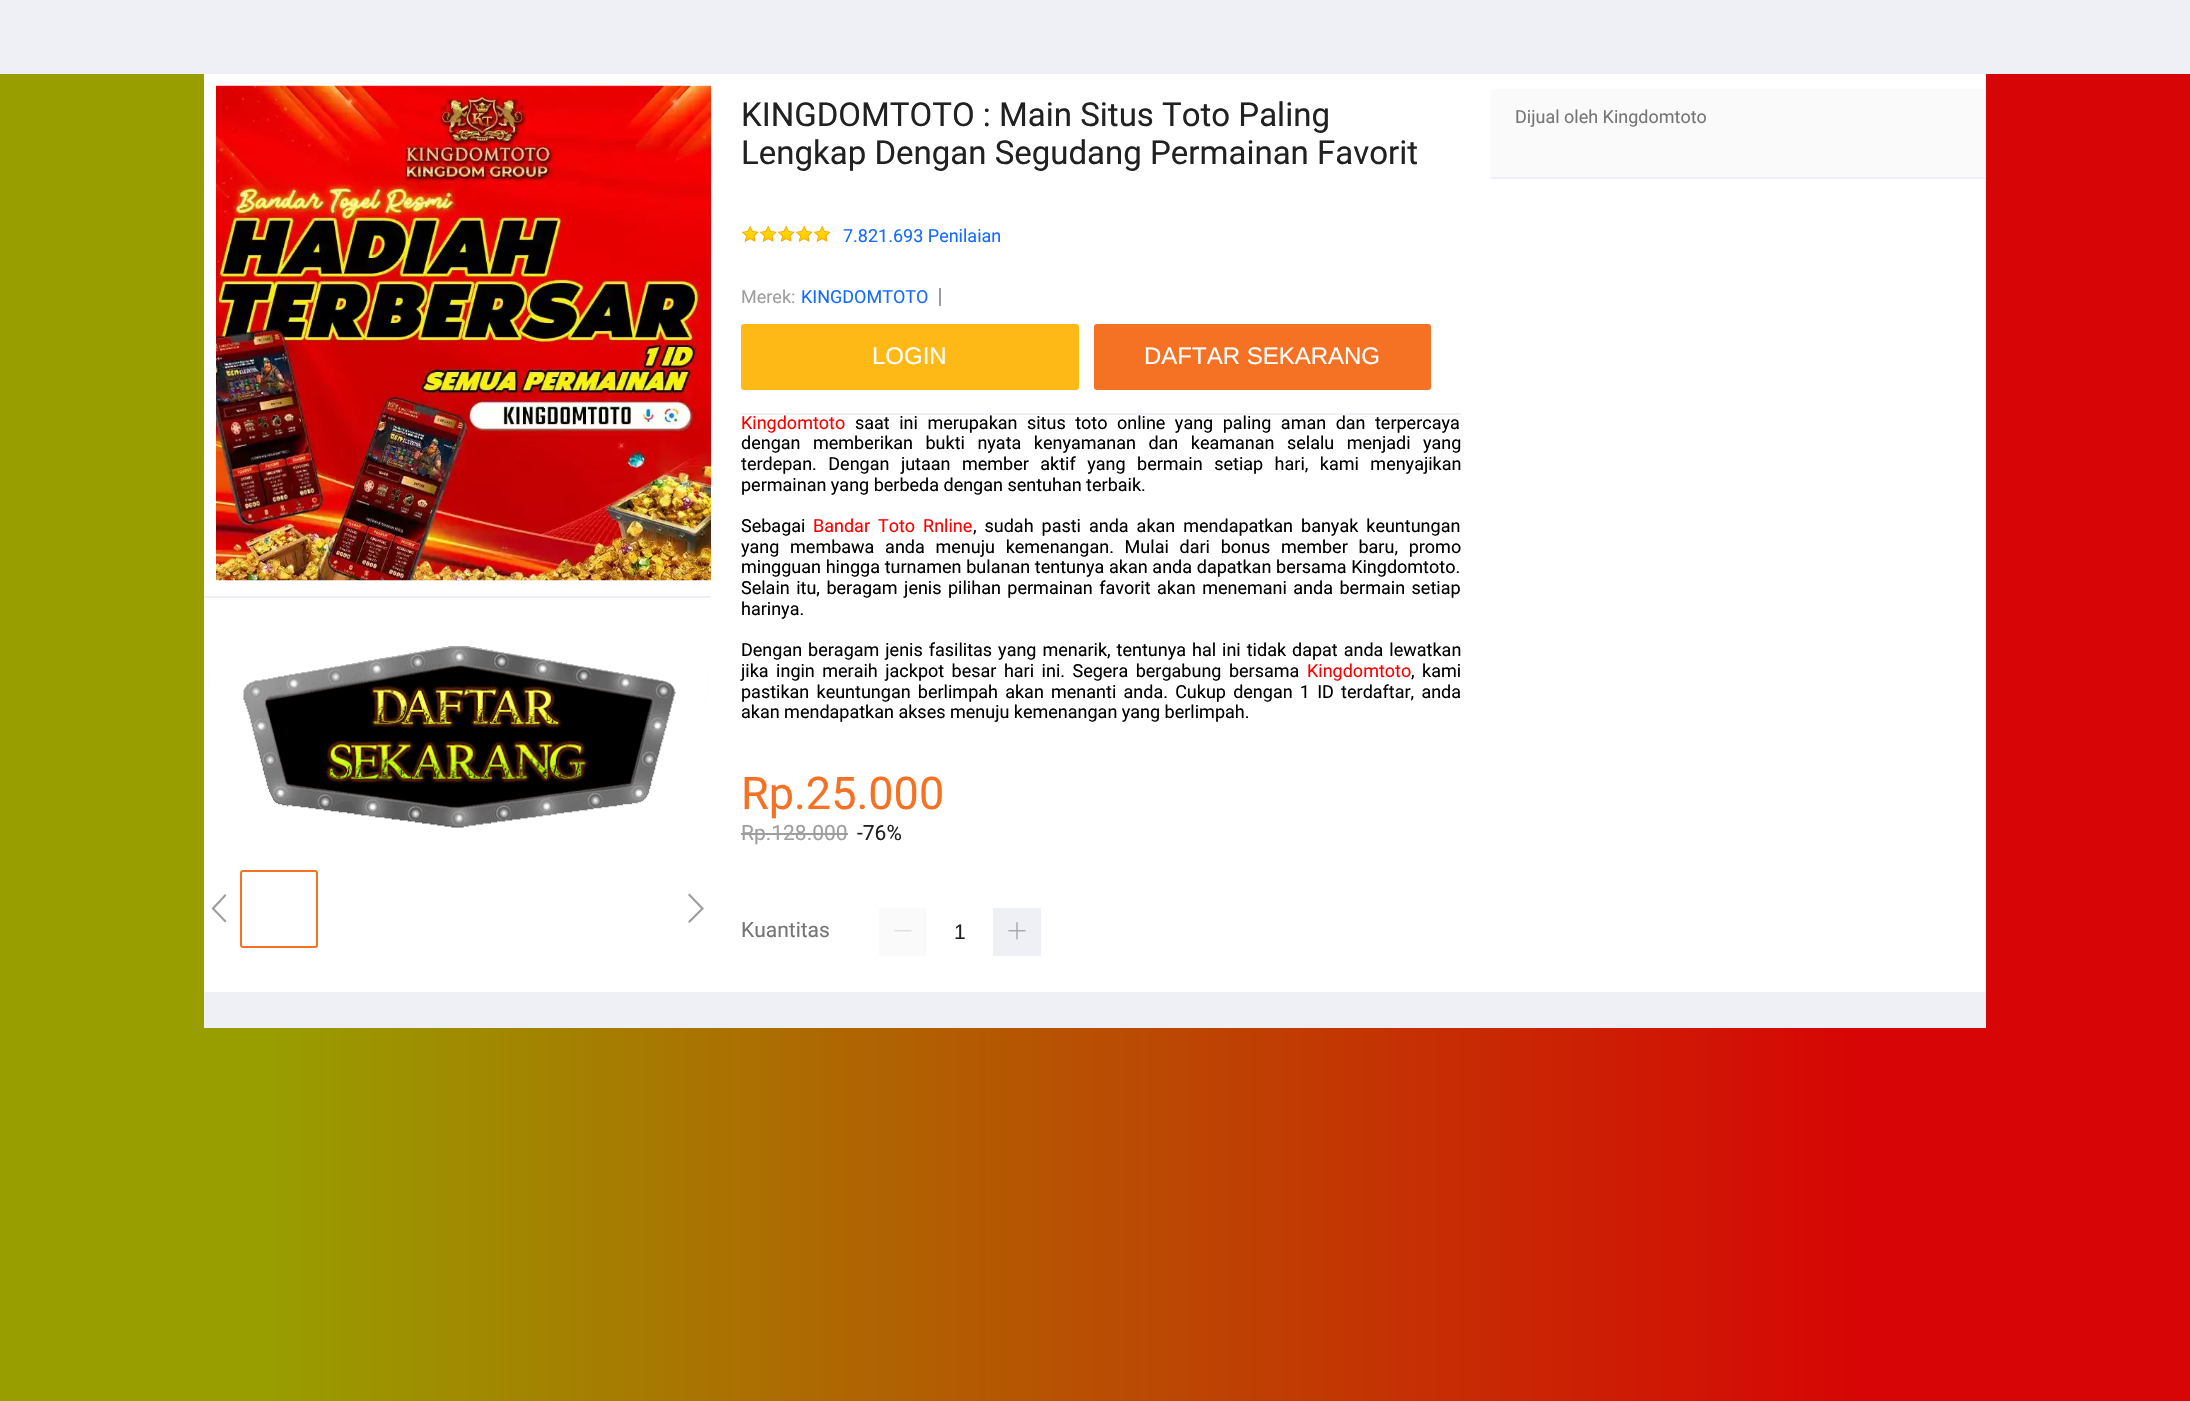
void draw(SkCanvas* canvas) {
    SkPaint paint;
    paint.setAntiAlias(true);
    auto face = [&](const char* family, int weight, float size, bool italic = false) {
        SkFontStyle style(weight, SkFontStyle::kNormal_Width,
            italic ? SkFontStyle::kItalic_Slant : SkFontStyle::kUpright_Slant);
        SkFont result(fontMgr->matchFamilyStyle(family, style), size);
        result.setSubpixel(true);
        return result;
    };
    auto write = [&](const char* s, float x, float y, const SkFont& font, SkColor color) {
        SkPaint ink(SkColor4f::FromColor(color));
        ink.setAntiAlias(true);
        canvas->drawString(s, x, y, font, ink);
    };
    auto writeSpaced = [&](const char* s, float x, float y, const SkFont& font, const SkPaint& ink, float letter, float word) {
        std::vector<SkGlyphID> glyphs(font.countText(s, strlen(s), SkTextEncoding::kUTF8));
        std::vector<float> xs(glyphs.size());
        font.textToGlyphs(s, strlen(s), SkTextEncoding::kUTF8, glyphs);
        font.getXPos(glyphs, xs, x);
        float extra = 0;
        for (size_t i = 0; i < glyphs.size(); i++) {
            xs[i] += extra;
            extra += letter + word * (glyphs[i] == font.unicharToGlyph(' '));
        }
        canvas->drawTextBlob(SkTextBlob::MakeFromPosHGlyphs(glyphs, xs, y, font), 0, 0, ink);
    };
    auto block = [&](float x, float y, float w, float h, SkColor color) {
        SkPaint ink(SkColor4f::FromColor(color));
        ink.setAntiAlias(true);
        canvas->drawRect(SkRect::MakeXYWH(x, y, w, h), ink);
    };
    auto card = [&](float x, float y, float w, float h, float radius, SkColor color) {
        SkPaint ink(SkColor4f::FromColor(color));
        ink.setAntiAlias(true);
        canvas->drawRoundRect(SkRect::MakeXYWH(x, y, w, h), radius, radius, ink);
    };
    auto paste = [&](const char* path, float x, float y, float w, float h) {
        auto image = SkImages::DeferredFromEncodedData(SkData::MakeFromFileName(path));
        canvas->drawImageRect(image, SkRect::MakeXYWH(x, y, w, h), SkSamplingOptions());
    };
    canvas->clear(SK_ColorWHITE);
    {
        const SkColor colors[] = {SkColorSetRGB(152, 158, 0), SkColorSetRGB(215, 5, 5)};
        const float stops[] = {0.12f, 0.85f};
        const SkPoint ends[] = {{0, 514}, {2190, 514}};
        paint.setShader(SkGradientShader::MakeLinear(ends, colors, stops, 2, SkTileMode::kClamp));
        paint.setAlpha(255);
    }
    canvas->drawRect(SkRect::MakeXYWH(0, 74, 2190, 1327), paint);
    block(0, 0, 2190, 74, SkColorSetRGB(239, 240, 245));
    block(204, 992, 1782, 36, SkColorSetRGB(239, 240, 245));
    block(204, 74, 1782, 918, SK_ColorWHITE);
    block(204, 596, 507, 2, SkColorSetRGB(239, 240, 245));
    paste("pic1.png", 216, 85, 495, 496);
    paste("pic2.png", 209, 646, 501, 182);
    paint.setShader(nullptr);
    paint.setColor(SkColorSetRGB(158, 158, 158));
    canvas->drawPath(SkPathBuilder().moveTo(226.5f, 921).lineTo(214.5f, 908.5f).lineTo(226.5f, 895.5f).lineTo(225, 894).lineTo(211.5f, 908.5f).lineTo(225, 922.5f).close().detach(), paint);
    paint.setStyle(SkPaint::kStroke_Style);
    paint.setStrokeWidth(2);
    paint.setColor(SkColorSetRGB(245, 114, 36));
    canvas->drawRoundRect(SkRect::MakeXYWH(241, 871, 76, 76), 2, 2, paint);
    paint.setStyle(SkPaint::kFill_Style);
    paint.setColor(SkColorSetRGB(158, 158, 158));
    canvas->drawPath(SkPathBuilder().moveTo(689.5f, 923).lineTo(688, 921.5f).lineTo(701, 908.5f).lineTo(688, 895).lineTo(689.5f, 893.5f).lineTo(704, 908.5f).close().detach(), paint);
    auto kFont1 = face("Roboto", 400, 33);
    write("KINGDOMTOTO : Main Situs Toto Paling", 741, 126, kFont1, SkColorSetRGB(33, 33, 33));
    write("Lengkap Dengan Segudang Permainan Favorit", 741, 164, kFont1, SkColorSetRGB(33, 33, 33));
    paste("pic3.png", 741, 225, 18, 17);
    paste("pic4.png", 759, 225, 18, 17);
    paste("pic5.png", 777, 225, 18, 17);
    paste("pic5.png", 795, 225, 18, 17);
    paste("pic5.png", 813, 225, 18, 17);
    auto kFont2 = face("Roboto", 400, 18);
    write("7.821.693 Penilaian", 843, 242, kFont2, SkColorSetRGB(19, 108, 255));
    block(741, 413, 720, 2, SkColorSetRGB(239, 240, 245));
    write("Merek:", 741, 303, kFont2, SkColorSetRGB(158, 158, 158));
    write("KINGDOMTOTO", 801, 303, kFont2, SkColorSetRGB(19, 108, 255));
    block(939, 288, 2, 18, SkColorSetRGB(158, 158, 158));
    card(741, 324, 338, 66, 3, SkColorSetRGB(255, 185, 22));
    auto kFont3 = face("Liberation Sans", 400, 24);
    write("LOGIN", 872, 364, kFont3, SK_ColorWHITE);
    card(1094, 324, 337, 66, 3, SkColorSetRGB(245, 114, 36));
    write("DAFTAR SEKARANG", 1144, 364, kFont3, SK_ColorWHITE);
    write("Kingdomtoto", 741, 429, kFont2, SkColorSetRGB(255, 0, 0));
    paint.setColor(SK_ColorBLACK);
    writeSpaced("saat ini merupakan situs toto online yang paling aman dan terpercaya", 855, 429, kFont2, paint, 0, 5);
    writeSpaced("dengan memberikan bukti nyata kenyamanan dan keamanan selalu menjadi yang", 741, 449, kFont2, paint, 0, 8);
    writeSpaced("terdepan. Dengan jutaan member aktif yang bermain setiap hari, kami menyajikan", 741, 470, kFont2, paint, 0, 7);
    write("permainan yang berbeda dengan sentuhan terbaik.", 741, 491, kFont2, SK_ColorBLACK);
    write("Sebagai", 741, 532, kFont2, SK_ColorBLACK);
    paint.setColor(SkColorSetRGB(255, 0, 0));
    writeSpaced("Bandar Toto Rnline", 813, 532, kFont2, paint, 0, 3.5f);
    paint.setColor(SK_ColorBLACK);
    writeSpaced(", sudah pasti anda akan mendapatkan banyak keuntungan", 973, 532, kFont2, paint, 0, 3.5f);
    writeSpaced("yang membawa anda menuju kemenangan. Mulai dari bonus member baru, promo", 741, 553, kFont2, paint, 0, 6.25f);
    writeSpaced("mingguan hingga turnamen bulanan tentunya akan anda dapatkan bersama Kingdomtoto.", 741, 573, kFont2, paint, 0, 0.25f);
    writeSpaced("Selain itu, beragam jenis pilihan permainan favorit akan menemani anda bermain setiap", 741, 594, kFont2, paint, 0, 2);
    write("harinya.", 741, 615, kFont2, SK_ColorBLACK);
    writeSpaced("Dengan beragam jenis fasilitas yang menarik, tentunya hal ini tidak dapat anda lewatkan", 741, 656, kFont2, paint, 0, 1.5f);
    writeSpaced("jika ingin meraih jackpot besar hari ini. Segera bergabung bersama", 741, 677, kFont2, paint, 0, 3);
    write("Kingdomtoto", 1307, 677, kFont2, SkColorSetRGB(255, 0, 0));
    writeSpaced(", kami", 1411, 677, kFont2, paint, 0, 3);
    writeSpaced("pastikan keuntungan berlimpah akan menanti anda. Cukup dengan 1 ID terdaftar, anda", 741, 698, kFont2, paint, 0, 2.75f);
    write("akan mendapatkan akses menuju kemenangan yang berlimpah.", 741, 718, kFont2, SK_ColorBLACK);
    auto kFont4 = face("Roboto", 400, 45);
    write("Rp.25.000", 741, 809, kFont4, SkColorSetRGB(245, 114, 36));
    auto kFont5 = face("Roboto", 400, 21);
    write("Rp.128.000", 741, 840, kFont5, SkColorSetRGB(158, 158, 158));
    block(741, 833, 107, 2, SkColorSetRGB(158, 158, 158));
    write("-76%", 857, 840, kFont5, SkColorSetRGB(33, 33, 33));
    write("Kuantitas", 741, 937, kFont5, SkColorSetRGB(117, 117, 117));
    block(879, 908, 48, 48, SkColorSetRGB(250, 250, 250));
    paste("pic6.png", 894, 930, 18, 2);
    block(993, 908, 48, 48, SkColorSetRGB(239, 240, 245));
    paste("pic7.png", 1008, 922, 18, 18);
    auto kFont6 = face("Liberation Sans", 400, 21);
    write("1", 954, 939, kFont6, SkColorSetRGB(33, 33, 33));
    block(1491, 89, 495, 88, SkColorSetRGB(250, 250, 250));
    write("Dijual oleh Kingdomtoto", 1515, 123, kFont2, SkColorSetRGB(117, 117, 117));
    block(1491, 177, 495, 2, SkColorSetRGB(239, 240, 245));
}
